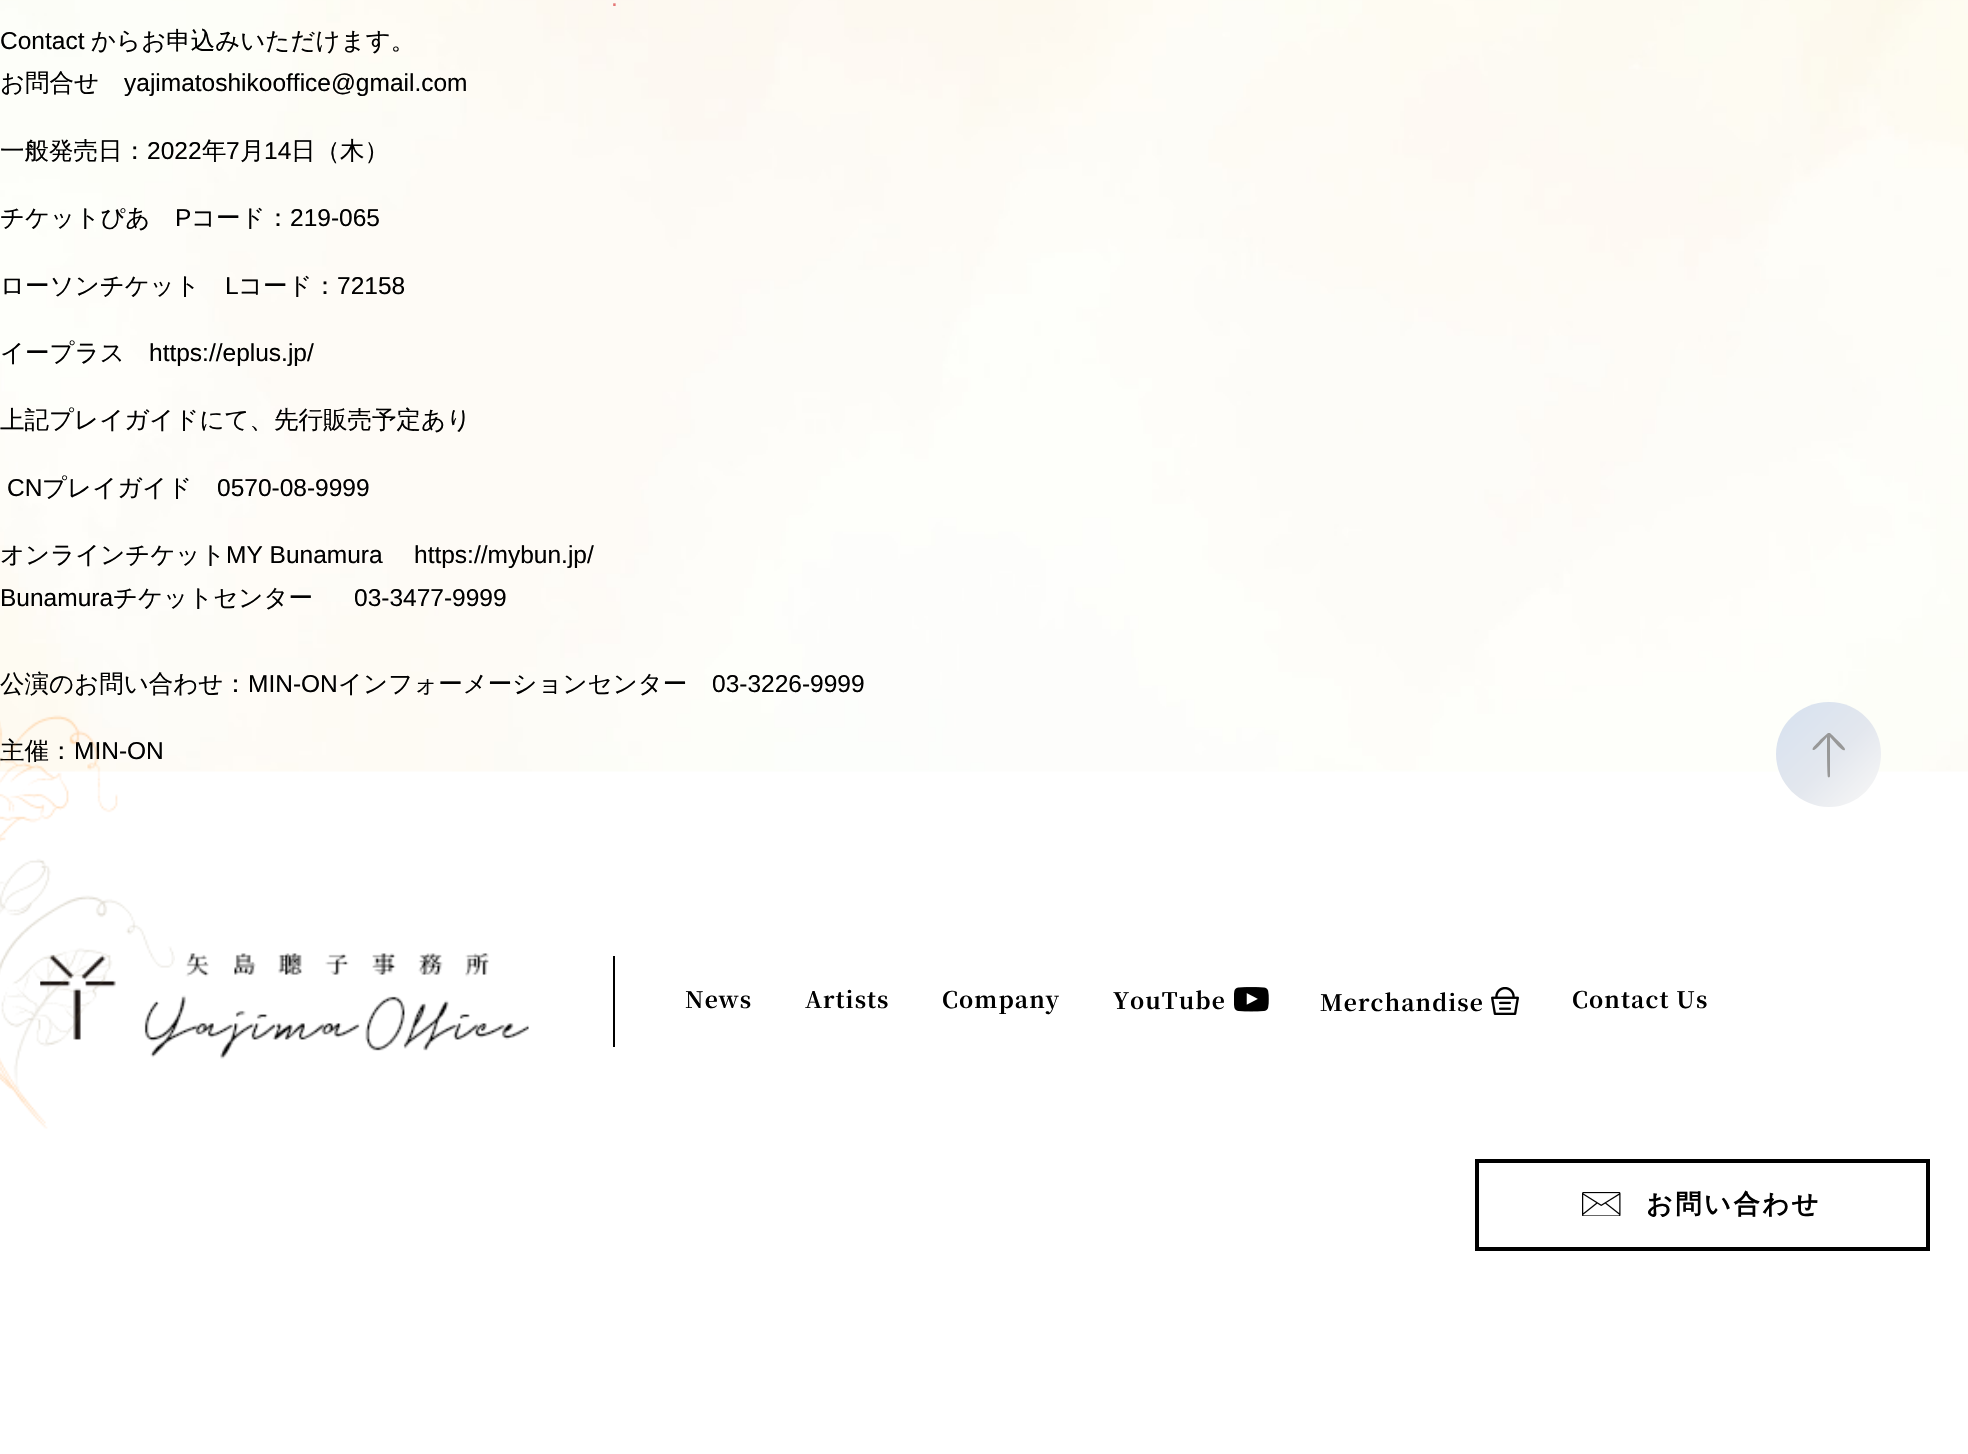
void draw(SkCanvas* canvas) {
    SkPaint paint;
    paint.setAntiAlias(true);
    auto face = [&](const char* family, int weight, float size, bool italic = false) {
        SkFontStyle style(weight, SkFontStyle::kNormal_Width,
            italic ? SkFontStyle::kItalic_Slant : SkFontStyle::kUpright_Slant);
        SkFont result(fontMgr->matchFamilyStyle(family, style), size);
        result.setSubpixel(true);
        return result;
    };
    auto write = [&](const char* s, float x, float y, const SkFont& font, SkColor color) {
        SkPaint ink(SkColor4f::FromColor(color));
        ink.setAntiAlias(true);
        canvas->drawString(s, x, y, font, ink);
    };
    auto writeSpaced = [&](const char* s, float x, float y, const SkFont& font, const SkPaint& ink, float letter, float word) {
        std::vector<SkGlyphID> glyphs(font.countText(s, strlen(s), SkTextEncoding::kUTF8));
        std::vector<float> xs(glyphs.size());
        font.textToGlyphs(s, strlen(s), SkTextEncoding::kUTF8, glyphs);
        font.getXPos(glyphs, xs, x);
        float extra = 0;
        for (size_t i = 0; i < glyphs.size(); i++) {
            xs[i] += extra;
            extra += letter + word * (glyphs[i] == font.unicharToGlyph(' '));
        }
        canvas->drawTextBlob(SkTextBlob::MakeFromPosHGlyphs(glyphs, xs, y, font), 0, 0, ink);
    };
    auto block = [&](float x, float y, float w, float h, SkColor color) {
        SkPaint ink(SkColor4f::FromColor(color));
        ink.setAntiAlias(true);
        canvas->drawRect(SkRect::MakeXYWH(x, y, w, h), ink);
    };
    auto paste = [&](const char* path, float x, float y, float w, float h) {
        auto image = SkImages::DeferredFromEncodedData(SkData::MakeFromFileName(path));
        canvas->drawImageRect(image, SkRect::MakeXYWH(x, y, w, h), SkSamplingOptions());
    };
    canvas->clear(SK_ColorWHITE);
    paste("pic1.png", 0, 0, 1968, 772);
    auto kFont1 = face("Liberation Sans", 400, 24.5f);
    write(".", 611, 6, kFont1, SkColorSetRGB(229, 119, 119));
    write("Contact", 0, 49, kFont1, SK_ColorBLACK);
    auto kFont2 = face("WenQuanYi Zen Hei", 500, 24.5f);
    write("からお申込みいただけます。", 91, 49, kFont2, SK_ColorBLACK);
    write("お問合せ", 0, 91, kFont2, SK_ColorBLACK);
    write("yajimatoshikooffice@gmail.com", 124, 91, kFont1, SK_ColorBLACK);
    write("一般発売日：", 0, 159, kFont2, SK_ColorBLACK);
    write("2022", 147, 159, kFont1, SK_ColorBLACK);
    write("年", 202, 159, kFont2, SK_ColorBLACK);
    write("7", 226, 159, kFont1, SK_ColorBLACK);
    write("月", 240, 159, kFont2, SK_ColorBLACK);
    write("14", 264, 159, kFont1, SK_ColorBLACK);
    write("日（木）", 291, 159, kFont2, SK_ColorBLACK);
    write("チケットぴあ", 0, 226, kFont2, SK_ColorBLACK);
    write("P", 175, 226, kFont1, SK_ColorBLACK);
    write("コード：", 191, 226, kFont2, SK_ColorBLACK);
    write("219-065", 290, 226, kFont1, SK_ColorBLACK);
    write("ローソンチケット", 0, 294, kFont2, SK_ColorBLACK);
    write("L", 225, 294, kFont1, SK_ColorBLACK);
    write("コード：", 238, 294, kFont2, SK_ColorBLACK);
    write("72158", 337, 294, kFont1, SK_ColorBLACK);
    write("イープラス", 0, 361, kFont2, SK_ColorBLACK);
    write("https://eplus.jp/", 149, 361, kFont1, SK_ColorBLACK);
    write("上記プレイガイドにて、先行販売予定あり", 0, 428, kFont2, SK_ColorBLACK);
    write("CN", 7, 496, kFont1, SK_ColorBLACK);
    write("プレイガイド", 42, 496, kFont2, SK_ColorBLACK);
    write("0570-08-9999", 217, 496, kFont1, SK_ColorBLACK);
    write("オンラインチケット", 0, 563, kFont2, SK_ColorBLACK);
    write("MY Bunamura", 226, 563, kFont1, SK_ColorBLACK);
    write("https://mybun.jp/", 414, 563, kFont1, SK_ColorBLACK);
    write("Bunamura", 0, 606, kFont1, SK_ColorBLACK);
    write("チケットセンター", 113, 606, kFont2, SK_ColorBLACK);
    write("03-3477-9999", 354, 606, kFont1, SK_ColorBLACK);
    write("公演のお問い合わせ：", 0, 692, kFont2, SK_ColorBLACK);
    write("MIN-ON", 248, 692, kFont1, SK_ColorBLACK);
    write("インフォーメーションセンター", 338, 692, kFont2, SK_ColorBLACK);
    write("03-3226-9999", 712, 692, kFont1, SK_ColorBLACK);
    write("主催：", 0, 759, kFont2, SK_ColorBLACK);
    write("MIN-ON", 74, 759, kFont1, SK_ColorBLACK);
    paste("pic3.png", 40, 953, 489, 106);
    paste("pic2.png", 0, 715, 175, 414);
    block(613, 956, 2, 91, SK_ColorBLACK);
    auto kFont3 = face("Noto Serif JP", 700, 22.75f);
    paint.setColor(SK_ColorBLACK);
    writeSpaced("News", 685, 1008, kFont3, paint, 1.1f, 0);
    writeSpaced("Artists", 805, 1008, kFont3, paint, 1.1f, 0);
    writeSpaced("Company", 942, 1008, kFont3, paint, 1.1f, 0);
    writeSpaced("YouTube", 1113, 1009, kFont3, paint, 1.1f, 0);
    paste("pic4.png", 1234, 987, 35, 25);
    writeSpaced("Merchandise", 1320, 1011, kFont3, paint, 1.1f, 0);
    paste("pic5.png", 1491, 987, 28, 28);
    writeSpaced("Contact Us", 1572, 1008, kFont3, paint, 1.1f, 0);
    paint.setStyle(SkPaint::kStroke_Style);
    paint.setStrokeWidth(4);
    canvas->drawRect(SkRect::MakeXYWH(1477, 1161, 451, 88), paint);
    paste("pic6.png", 1582, 1192, 39, 24);
    auto kFont4 = face("WenQuanYi Zen Hei", 700, 26.25f);
    paint.setStyle(SkPaint::kFill_Style);
    writeSpaced("お問い合わせ", 1646, 1213, kFont4, paint, 2.5f, 0);
    {
        const SkColor colors[] = {SkColorSetRGB(246, 246, 246), SkColorSetRGB(227, 231, 238), SkColorSetRGB(218, 227, 239)};
        const float stops[] = {0, 0.51f, 1};
        const SkPoint ends[] = {{1866, 807}, {1787, 725}};
        paint.setShader(SkGradientShader::MakeLinear(ends, colors, stops, 3, SkTileMode::kClamp));
        paint.setAlpha(255);
    }
    canvas->drawPath(SkPathBuilder().moveTo(1829, 702).cubicTo(1858, 702, 1881, 725, 1881, 754).cubicTo(1881, 783, 1858, 807, 1829, 807).cubicTo(1800, 807, 1776, 783, 1776, 754).cubicTo(1776, 725, 1800, 702, 1829, 702).close().detach(), paint);
    paint.setShader(nullptr);
    paint.setColor(SkColorSetRGB(152, 152, 152));
    canvas->drawPath(SkPathBuilder().moveTo(1830, 733).lineTo(1828, 733).lineTo(1820, 740).cubicTo(1819, 742, 1809, 750, 1814, 750).cubicTo(1816, 750, 1825, 739, 1827, 737).cubicTo(1827, 741, 1827, 776, 1828, 777).cubicTo(1829, 778, 1830, 777, 1830, 776).lineTo(1830, 737).lineTo(1838, 746).cubicTo(1841, 749, 1845, 752, 1845, 749).cubicTo(1845, 747, 1832, 735, 1830, 733).close().detach(), paint);
}
